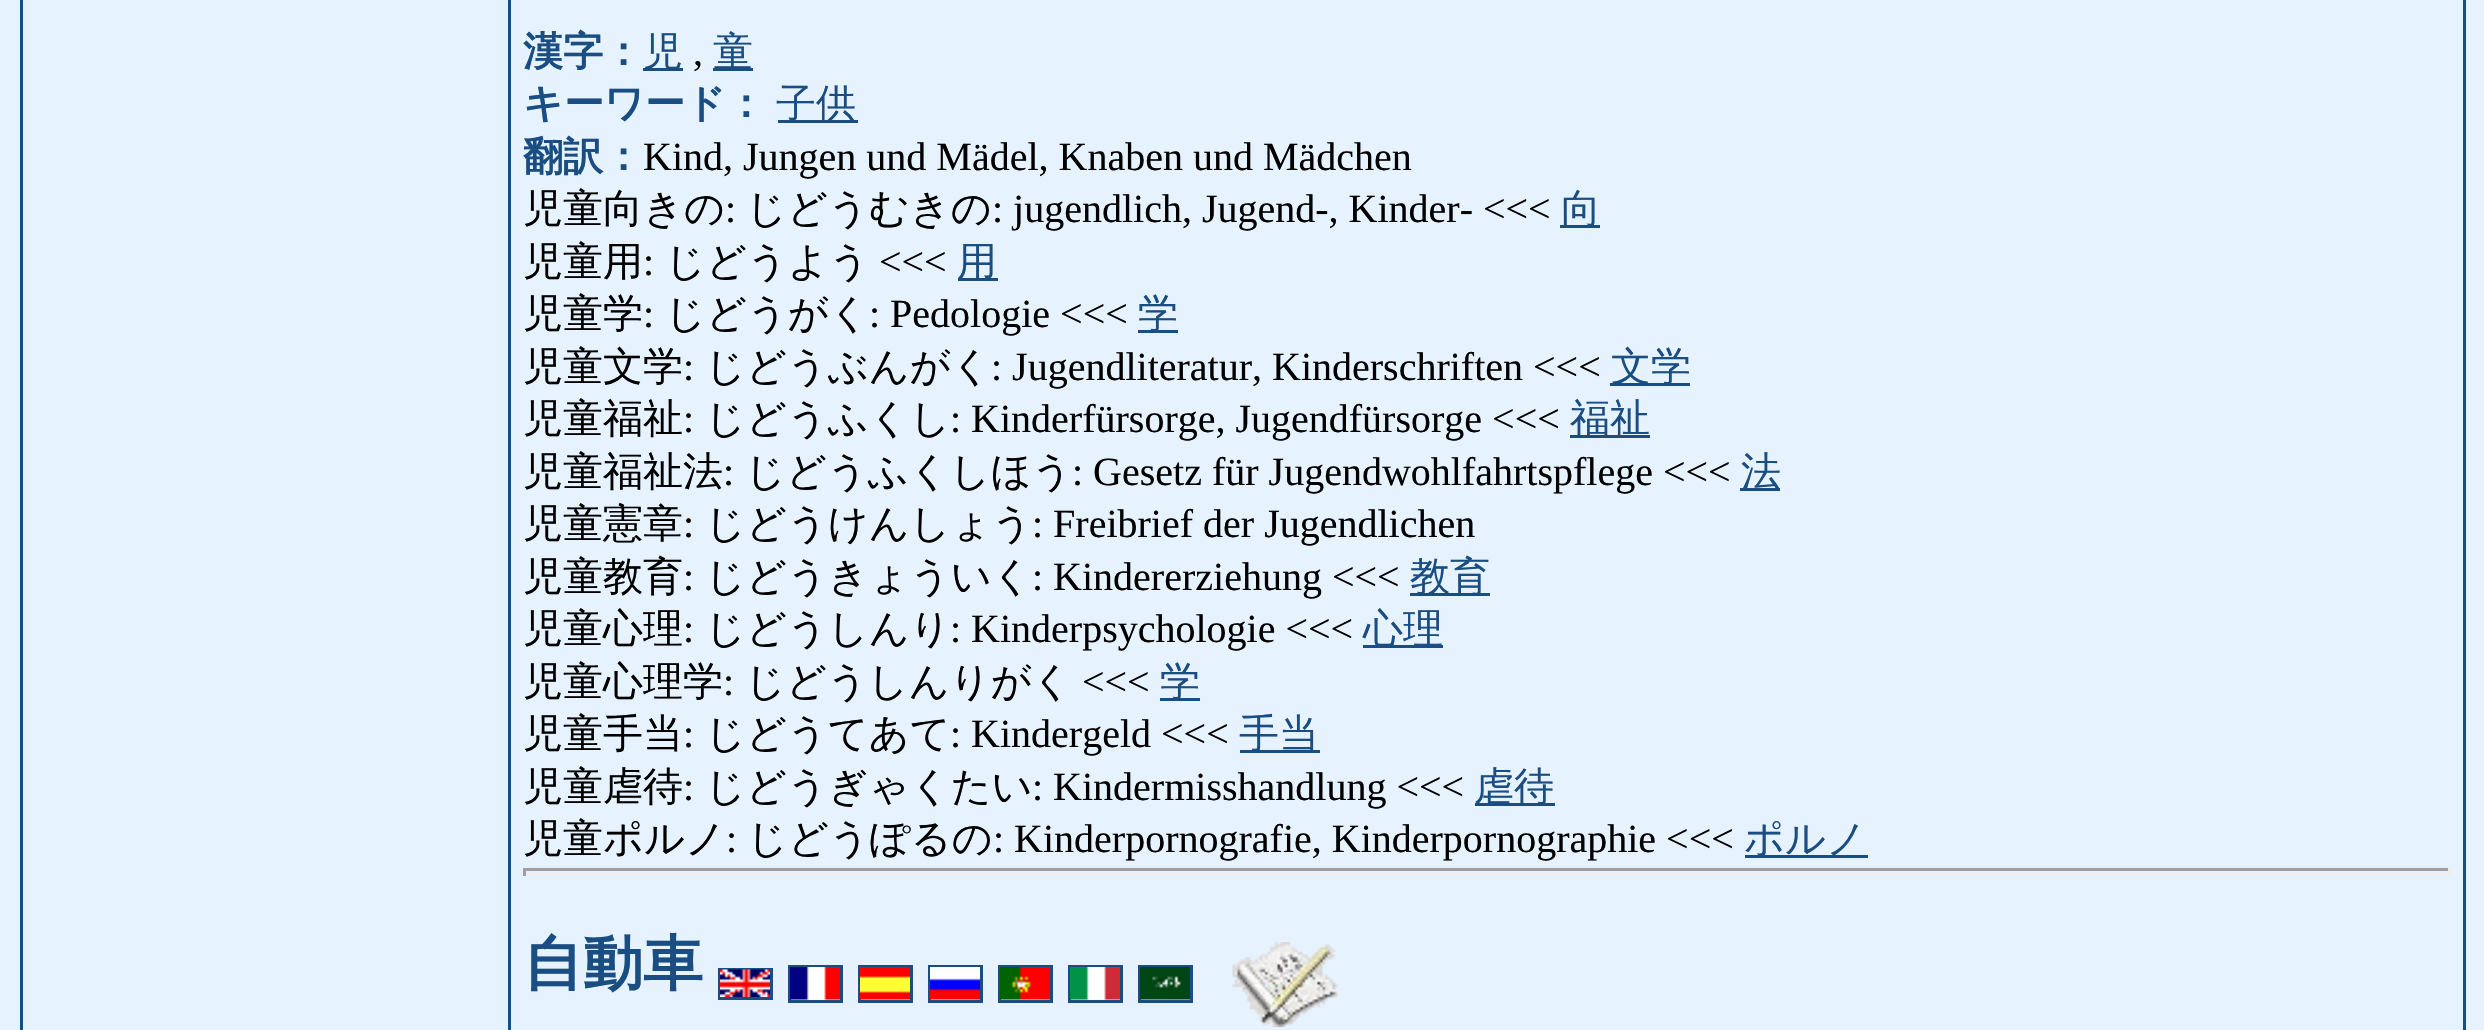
void draw(SkCanvas* canvas) {
    SkPaint paint;
    paint.setAntiAlias(true);
    auto face = [&](const char* family, int weight, float size, bool italic = false) {
        SkFontStyle style(weight, SkFontStyle::kNormal_Width,
            italic ? SkFontStyle::kItalic_Slant : SkFontStyle::kUpright_Slant);
        SkFont result(fontMgr->matchFamilyStyle(family, style), size);
        result.setSubpixel(true);
        return result;
    };
    auto write = [&](const char* s, float x, float y, const SkFont& font, SkColor color) {
        SkPaint ink(SkColor4f::FromColor(color));
        ink.setAntiAlias(true);
        canvas->drawString(s, x, y, font, ink);
    };
    auto block = [&](float x, float y, float w, float h, SkColor color) {
        SkPaint ink(SkColor4f::FromColor(color));
        ink.setAntiAlias(true);
        canvas->drawRect(SkRect::MakeXYWH(x, y, w, h), ink);
    };
    auto paste = [&](const char* path, float x, float y, float w, float h) {
        auto image = SkImages::DeferredFromEncodedData(SkData::MakeFromFileName(path));
        canvas->drawImageRect(image, SkRect::MakeXYWH(x, y, w, h), SkSamplingOptions());
    };
    canvas->clear(SkColorSetRGB(230, 243, 255));
    block(2463, 0, 3, 1030, SkColorSetRGB(26, 77, 129));
    block(20, 0, 3, 1030, SkColorSetRGB(26, 77, 129));
    block(508, 0, 3, 1030, SkColorSetRGB(26, 77, 129));
    auto kFont1 = face("WenQuanYi Zen Hei", 700, 40);
    write("漢字：", 523, 65, kFont1, SkColorSetRGB(26, 77, 129));
    block(643, 68, 40, 3, SkColorSetRGB(26, 77, 129));
    auto kFont2 = face("WenQuanYi Zen Hei", 500, 40);
    write("児", 643, 65, kFont2, SkColorSetRGB(26, 77, 129));
    auto kFont3 = face("Liberation Serif", 400, 40);
    write(",", 693, 65, kFont3, SK_ColorBLACK);
    write("童", 713, 65, kFont2, SkColorSetRGB(26, 77, 129));
    block(713, 68, 40, 3, SkColorSetRGB(26, 77, 129));
    write("キーワード：", 523, 117, kFont1, SkColorSetRGB(26, 77, 129));
    block(778, 120, 80, 3, SkColorSetRGB(26, 77, 129));
    write("子供", 776, 117, kFont2, SkColorSetRGB(26, 77, 129));
    write("翻訳：", 523, 170, kFont1, SkColorSetRGB(26, 77, 129));
    write("Kind, Jungen und Mädel, Knaben und Mädchen", 643, 170, kFont3, SK_ColorBLACK);
    write("児童向きの", 523, 222, kFont2, SK_ColorBLACK);
    write(":", 725, 222, kFont3, SK_ColorBLACK);
    write("じどうむきの", 746, 222, kFont2, SK_ColorBLACK);
    write(": jugendlich, Jugend-, Kinder- <<<", 992, 222, kFont3, SK_ColorBLACK);
    block(1560, 225, 40, 3, SkColorSetRGB(26, 77, 129));
    write("向", 1561, 222, kFont2, SkColorSetRGB(26, 77, 129));
    write("児童用", 523, 275, kFont2, SK_ColorBLACK);
    write(":", 643, 275, kFont3, SK_ColorBLACK);
    write("じどうよう", 665, 275, kFont2, SK_ColorBLACK);
    write("<<<", 879, 275, kFont3, SK_ColorBLACK);
    block(958, 278, 40, 3, SkColorSetRGB(26, 77, 129));
    write("用", 957, 275, kFont2, SkColorSetRGB(26, 77, 129));
    write("児童学", 523, 327, kFont2, SK_ColorBLACK);
    write(":", 643, 327, kFont3, SK_ColorBLACK);
    write("じどうがく", 665, 327, kFont2, SK_ColorBLACK);
    write(": Pedologie <<<", 869, 327, kFont3, SK_ColorBLACK);
    block(1138, 330, 40, 3, SkColorSetRGB(26, 77, 129));
    write("学", 1138, 327, kFont2, SkColorSetRGB(26, 77, 129));
    write("児童文学", 523, 380, kFont2, SK_ColorBLACK);
    write(":", 683, 380, kFont3, SK_ColorBLACK);
    write("じどうぶんがく", 705, 380, kFont2, SK_ColorBLACK);
    write(": Jugendliteratur, Kinderschriften <<<", 991, 380, kFont3, SK_ColorBLACK);
    block(1610, 383, 80, 3, SkColorSetRGB(26, 77, 129));
    write("文学", 1611, 380, kFont2, SkColorSetRGB(26, 77, 129));
    write("児童福祉", 523, 432, kFont2, SK_ColorBLACK);
    write(":", 683, 432, kFont3, SK_ColorBLACK);
    write("じどうふくし", 705, 432, kFont2, SK_ColorBLACK);
    write(": Kinderfürsorge, Jugendfürsorge <<<", 950, 432, kFont3, SK_ColorBLACK);
    block(1570, 435, 80, 3, SkColorSetRGB(26, 77, 129));
    write("福祉", 1570, 432, kFont2, SkColorSetRGB(26, 77, 129));
    write("児童福祉法", 523, 485, kFont2, SK_ColorBLACK);
    write(":", 723, 485, kFont3, SK_ColorBLACK);
    write("じどうふくしほう", 745, 485, kFont2, SK_ColorBLACK);
    write(": Gesetz für Jugendwohlfahrtspflege <<<", 1072, 485, kFont3, SK_ColorBLACK);
    block(1740, 488, 40, 3, SkColorSetRGB(26, 77, 129));
    write("法", 1741, 485, kFont2, SkColorSetRGB(26, 77, 129));
    write("児童憲章", 523, 537, kFont2, SK_ColorBLACK);
    write(":", 683, 537, kFont3, SK_ColorBLACK);
    write("じどうけんしょう", 705, 537, kFont2, SK_ColorBLACK);
    write(": Freibrief der Jugendlichen", 1032, 537, kFont3, SK_ColorBLACK);
    write("児童教育", 523, 590, kFont2, SK_ColorBLACK);
    write(":", 683, 590, kFont3, SK_ColorBLACK);
    write("じどうきょういく", 705, 590, kFont2, SK_ColorBLACK);
    write(": Kindererziehung <<<", 1032, 590, kFont3, SK_ColorBLACK);
    block(1410, 593, 80, 3, SkColorSetRGB(26, 77, 129));
    write("教育", 1410, 590, kFont2, SkColorSetRGB(26, 77, 129));
    write("児童心理", 523, 642, kFont2, SK_ColorBLACK);
    write(":", 683, 642, kFont3, SK_ColorBLACK);
    write("じどうしんり", 705, 642, kFont2, SK_ColorBLACK);
    write(": Kinderpsychologie <<<", 950, 642, kFont3, SK_ColorBLACK);
    block(1363, 645, 80, 3, SkColorSetRGB(26, 77, 129));
    write("心理", 1363, 642, kFont2, SkColorSetRGB(26, 77, 129));
    write("児童心理学", 523, 695, kFont2, SK_ColorBLACK);
    write(":", 723, 695, kFont3, SK_ColorBLACK);
    write("じどうしんりがく", 745, 695, kFont2, SK_ColorBLACK);
    write("<<<", 1082, 695, kFont3, SK_ColorBLACK);
    block(1160, 698, 40, 3, SkColorSetRGB(26, 77, 129));
    write("学", 1160, 695, kFont2, SkColorSetRGB(26, 77, 129));
    write("児童手当", 523, 747, kFont2, SK_ColorBLACK);
    write(":", 683, 747, kFont3, SK_ColorBLACK);
    write("じどうてあて", 705, 747, kFont2, SK_ColorBLACK);
    write(": Kindergeld <<<", 950, 747, kFont3, SK_ColorBLACK);
    block(1240, 750, 80, 3, SkColorSetRGB(26, 77, 129));
    write("手当", 1239, 747, kFont2, SkColorSetRGB(26, 77, 129));
    write("児童虐待", 523, 800, kFont2, SK_ColorBLACK);
    write(":", 683, 800, kFont3, SK_ColorBLACK);
    write("じどうぎゃくたい", 705, 800, kFont2, SK_ColorBLACK);
    write(": Kindermisshandlung <<<", 1032, 800, kFont3, SK_ColorBLACK);
    block(1475, 803, 80, 3, SkColorSetRGB(26, 77, 129));
    write("虐待", 1474, 800, kFont2, SkColorSetRGB(26, 77, 129));
    write("児童ポルノ", 523, 852, kFont2, SK_ColorBLACK);
    write(":", 726, 852, kFont3, SK_ColorBLACK);
    write("じどうぽるの", 747, 852, kFont2, SK_ColorBLACK);
    write(": Kinderpornografie, Kinderpornographie <<<", 993, 852, kFont3, SK_ColorBLACK);
    block(1745, 855, 123, 3, SkColorSetRGB(26, 77, 129));
    write("ポルノ", 1744, 852, kFont2, SkColorSetRGB(26, 77, 129));
    block(523, 868, 1927, 3, SkColorSetRGB(159, 159, 159));
    block(2448, 868, 3, 8, SkColorSetRGB(238, 238, 238));
    block(523, 873, 1927, 3, SkColorSetRGB(238, 238, 238));
    block(523, 868, 3, 8, SkColorSetRGB(159, 159, 159));
    auto kFont4 = face("WenQuanYi Zen Hei", 700, 60);
    write("自動車", 523, 984, kFont4, SkColorSetRGB(26, 77, 129));
    paint.setStyle(SkPaint::kStroke_Style);
    paint.setStrokeWidth(3);
    paint.setColor(SkColorSetRGB(26, 77, 129));
    canvas->drawRect(SkRect::MakeXYWH(789.5f, 966.5f, 52, 35), paint);
    canvas->drawRect(SkRect::MakeXYWH(859.5f, 966.5f, 52, 35), paint);
    canvas->drawRect(SkRect::MakeXYWH(929.5f, 966.5f, 52, 35), paint);
    canvas->drawRect(SkRect::MakeXYWH(999.5f, 966.5f, 52, 35), paint);
    canvas->drawRect(SkRect::MakeXYWH(1069.5f, 966.5f, 52, 35), paint);
    canvas->drawRect(SkRect::MakeXYWH(1139.5f, 966.5f, 52, 35), paint);
    paste("pic1.png", 1232, 942, 106, 85);
    canvas->drawRect(SkRect::MakeXYWH(719.5f, 969.5f, 52, 29), paint);
    paste("pic2.png", 790, 967, 50, 33);
    paste("pic3.png", 860, 967, 50, 33);
    paste("pic4.png", 930, 967, 50, 33);
    paste("pic5.png", 1000, 967, 50, 33);
    paste("pic6.png", 1070, 967, 50, 33);
    paste("pic7.png", 1140, 967, 50, 33);
    paste("pic8.png", 720, 969, 50, 28);
}
